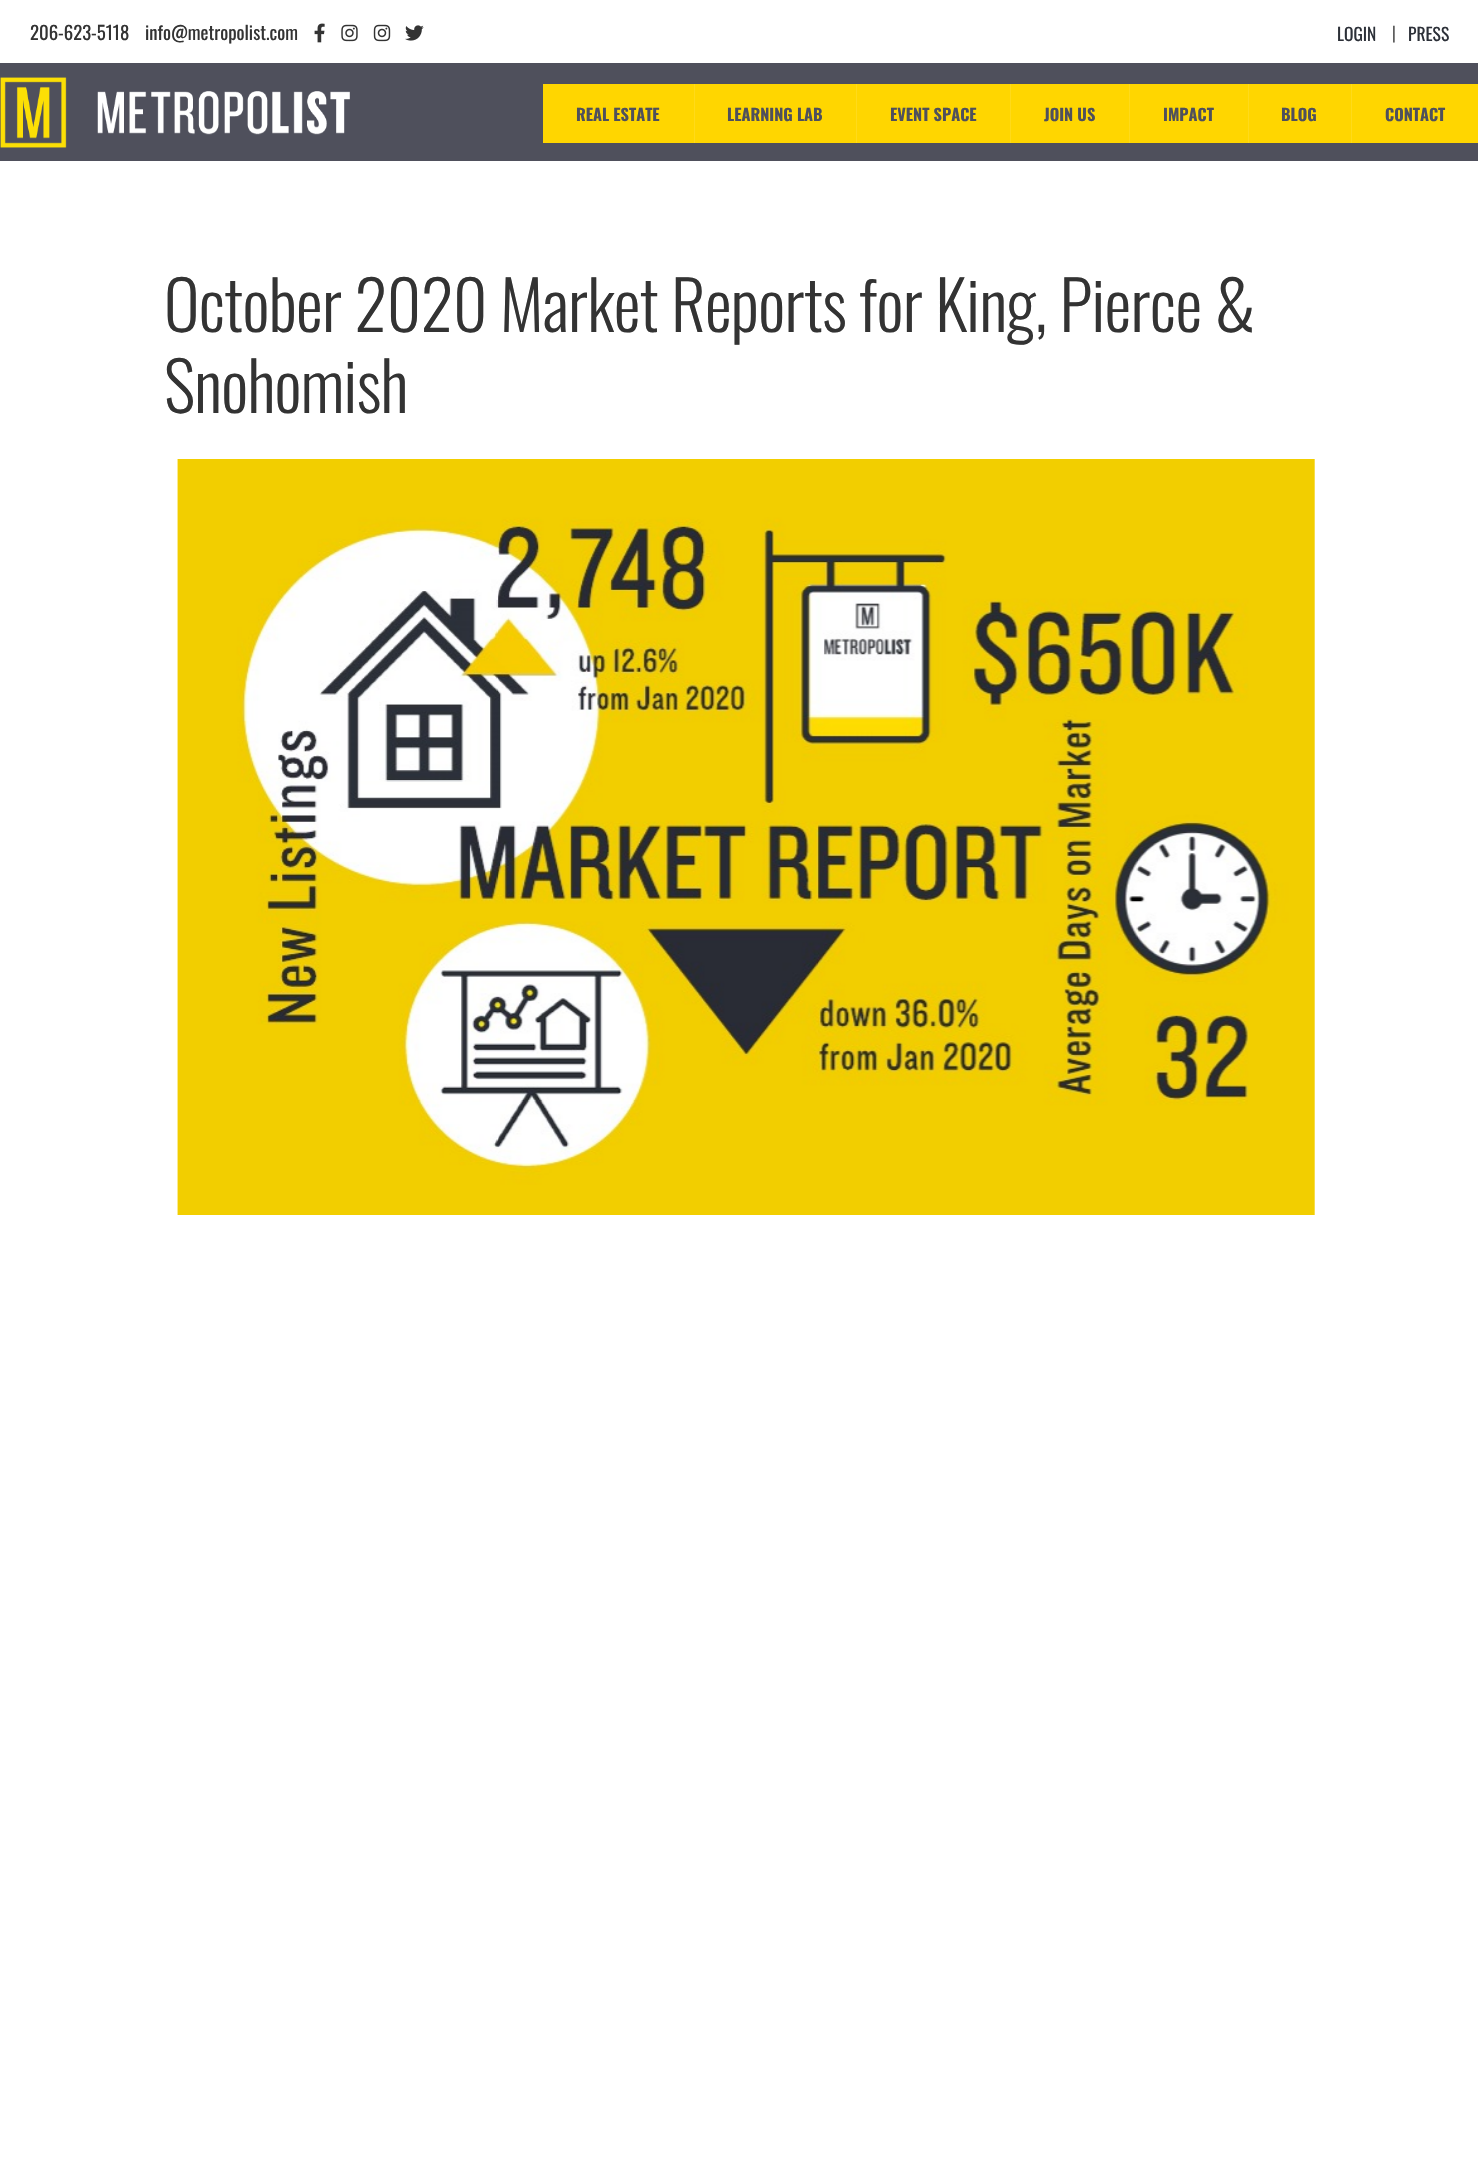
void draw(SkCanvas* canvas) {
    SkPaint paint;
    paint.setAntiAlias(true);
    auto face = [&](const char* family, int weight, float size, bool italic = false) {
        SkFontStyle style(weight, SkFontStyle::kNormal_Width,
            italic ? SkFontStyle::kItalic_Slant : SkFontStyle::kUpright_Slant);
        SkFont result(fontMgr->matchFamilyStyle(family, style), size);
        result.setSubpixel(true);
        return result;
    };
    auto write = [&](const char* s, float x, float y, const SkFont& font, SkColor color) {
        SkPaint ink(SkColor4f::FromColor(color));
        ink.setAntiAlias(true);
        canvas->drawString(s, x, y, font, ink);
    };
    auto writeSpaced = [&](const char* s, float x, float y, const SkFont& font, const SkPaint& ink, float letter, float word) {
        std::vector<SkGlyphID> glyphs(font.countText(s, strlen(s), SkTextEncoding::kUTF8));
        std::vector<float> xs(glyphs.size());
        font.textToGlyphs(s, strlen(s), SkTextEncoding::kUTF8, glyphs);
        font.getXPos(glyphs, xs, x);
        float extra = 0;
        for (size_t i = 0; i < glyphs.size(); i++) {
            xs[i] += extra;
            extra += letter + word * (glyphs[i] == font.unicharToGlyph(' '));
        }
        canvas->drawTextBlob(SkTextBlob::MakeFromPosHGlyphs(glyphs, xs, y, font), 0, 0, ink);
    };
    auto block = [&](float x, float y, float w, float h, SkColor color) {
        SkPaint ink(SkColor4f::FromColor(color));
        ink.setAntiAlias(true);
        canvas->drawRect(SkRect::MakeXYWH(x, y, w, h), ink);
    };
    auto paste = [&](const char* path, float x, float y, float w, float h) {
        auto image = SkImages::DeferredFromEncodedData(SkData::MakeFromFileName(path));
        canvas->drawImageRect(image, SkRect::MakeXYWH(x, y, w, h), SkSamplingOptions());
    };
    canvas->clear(SK_ColorWHITE);
    auto kFont1 = face("Oswald", 400, 18.75f);
    write("206-623-5118", 30, 40, kFont1, SkColorSetRGB(51, 51, 51));
    write("info@metropolist.com", 145, 40, kFont1, SkColorSetRGB(51, 51, 51));
    paste("pic1.png", 314, 23, 11, 20);
    paste("pic2.png", 341, 24, 17, 18);
    paste("pic3.png", 373, 24, 18, 18);
    paste("pic4.png", 405, 25, 19, 16);
    auto kFont2 = face("Oswald", 400, 17.5f);
    write("LOGIN", 1337, 41, kFont2, SkColorSetRGB(44, 48, 56));
    auto kFont3 = face("Oswald", 300, 17.5f);
    write("|", 1392, 40, kFont3, SkColorSetRGB(51, 51, 51));
    write("PRESS", 1408, 41, kFont2, SkColorSetRGB(44, 48, 56));
    block(0, 63, 1478, 98, SkColorSetRGB(79, 80, 92));
    paste("pic5.png", 0, 77, 350, 71);
    block(543, 84, 151, 59, SkColorSetRGB(255, 214, 0));
    auto kFont4 = face("Oswald", 700, 16.25f);
    write("REAL ESTATE", 576, 121, kFont4, SkColorSetRGB(79, 80, 92));
    block(695, 84, 161, 59, SkColorSetRGB(255, 214, 0));
    block(694, 84, 1, 59, SkColorSetRGB(255, 218, 26));
    write("LEARNING LAB", 727, 121, kFont4, SkColorSetRGB(79, 80, 92));
    block(857, 84, 153, 59, SkColorSetRGB(255, 214, 0));
    block(856, 84, 1, 59, SkColorSetRGB(255, 218, 26));
    write("EVENT SPACE", 890, 121, kFont4, SkColorSetRGB(79, 80, 92));
    block(1011, 84, 118, 59, SkColorSetRGB(255, 214, 0));
    block(1010, 84, 1, 59, SkColorSetRGB(255, 218, 26));
    write("JOIN US", 1044, 121, kFont4, SkColorSetRGB(79, 80, 92));
    block(1130, 84, 118, 59, SkColorSetRGB(255, 214, 0));
    block(1129, 84, 1, 59, SkColorSetRGB(255, 218, 26));
    write("IMPACT", 1163, 121, kFont4, SkColorSetRGB(79, 80, 92));
    block(1249, 84, 102, 59, SkColorSetRGB(255, 214, 0));
    block(1248, 84, 1, 59, SkColorSetRGB(255, 218, 26));
    write("BLOG", 1281, 121, kFont4, SkColorSetRGB(79, 80, 92));
    block(1352, 84, 126, 59, SkColorSetRGB(255, 214, 0));
    block(1351, 84, 1, 59, SkColorSetRGB(255, 218, 26));
    write("CONTACT", 1385, 121, kFont4, SkColorSetRGB(79, 80, 92));
    auto kFont5 = face("Oswald", 300, 67.5f);
    paint.setColor(SkColorSetRGB(51, 51, 51));
    writeSpaced("October 2020 Market Reports for King, Pierce &", 164, 332, kFont5, paint, -0.7f, 0);
    writeSpaced("Snohomish", 164, 413, kFont5, paint, -0.7f, 0);
    paste("pic6.png", 177, 459, 1138, 756);
}
